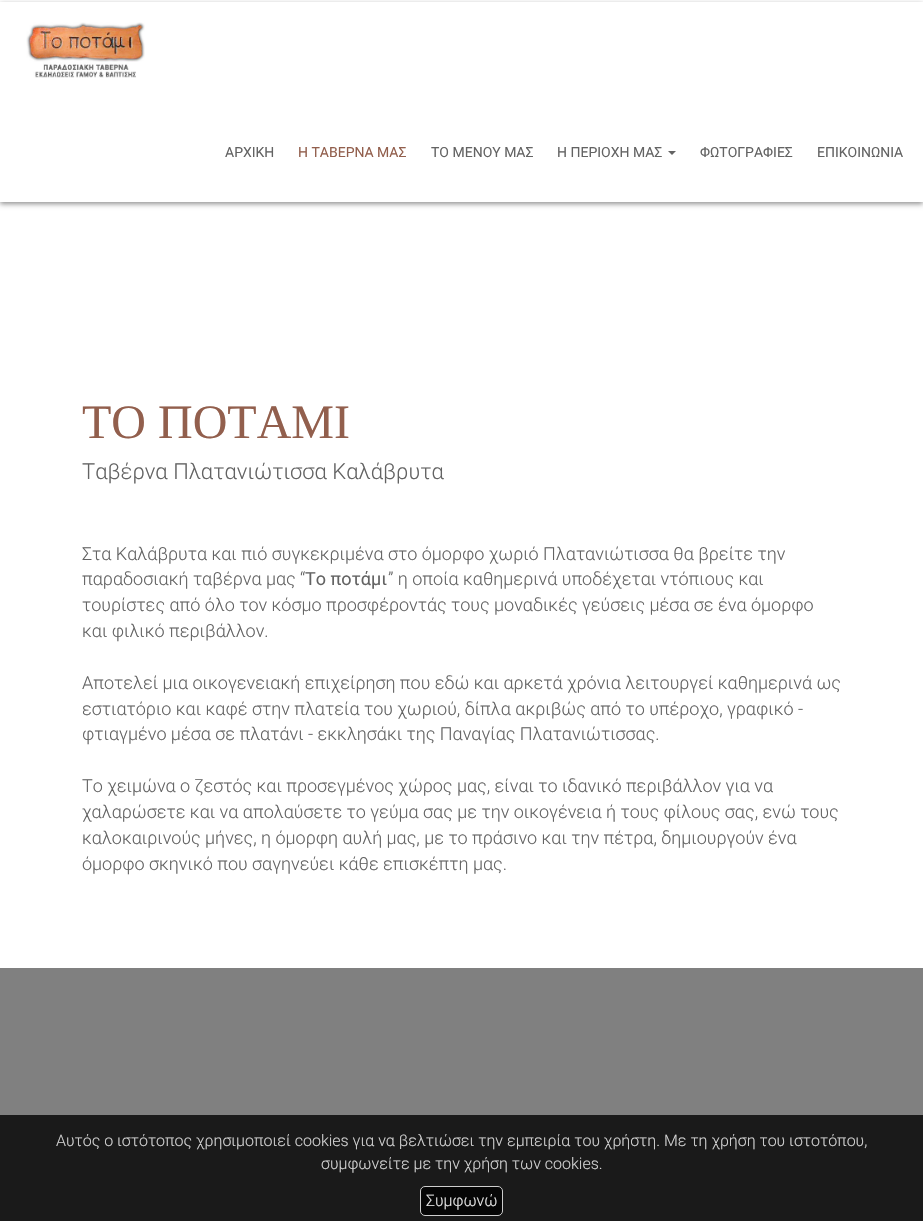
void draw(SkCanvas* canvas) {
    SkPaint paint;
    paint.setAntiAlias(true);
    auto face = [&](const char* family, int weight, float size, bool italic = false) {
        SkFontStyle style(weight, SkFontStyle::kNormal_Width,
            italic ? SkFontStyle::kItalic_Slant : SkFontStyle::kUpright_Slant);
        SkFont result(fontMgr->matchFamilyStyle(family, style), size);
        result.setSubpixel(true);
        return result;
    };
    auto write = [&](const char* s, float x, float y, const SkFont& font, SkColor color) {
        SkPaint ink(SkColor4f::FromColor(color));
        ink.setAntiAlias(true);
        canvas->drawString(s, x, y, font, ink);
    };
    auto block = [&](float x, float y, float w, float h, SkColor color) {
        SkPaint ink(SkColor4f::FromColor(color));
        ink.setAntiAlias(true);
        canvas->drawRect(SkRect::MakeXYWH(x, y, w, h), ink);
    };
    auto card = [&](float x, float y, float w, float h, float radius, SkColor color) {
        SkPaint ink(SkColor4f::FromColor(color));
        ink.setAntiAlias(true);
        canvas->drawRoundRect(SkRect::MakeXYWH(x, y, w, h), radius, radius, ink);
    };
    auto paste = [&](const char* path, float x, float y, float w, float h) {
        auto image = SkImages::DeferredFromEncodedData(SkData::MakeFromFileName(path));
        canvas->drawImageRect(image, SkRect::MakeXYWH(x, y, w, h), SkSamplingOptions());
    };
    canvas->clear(SK_ColorWHITE);
    canvas->save();
    canvas->clipPath(SkPathBuilder(SkPathFillType::kEvenOdd).moveTo(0, 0).lineTo(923, 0).lineTo(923, 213).lineTo(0, 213).close().moveTo(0, 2).lineTo(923, 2).lineTo(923, 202).lineTo(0, 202).close().detach(), true);
    paint.setColor(SkColorSetARGB(110, 0, 0, 0));
    paint.setMaskFilter(SkMaskFilter::MakeBlur(kNormal_SkBlurStyle, 2.5f));
    canvas->drawRect(SkRect::MakeXYWH(0, 4, 923, 200), paint);
    paint.setMaskFilter(nullptr);
    canvas->restore();
    paste("pic1.png", 26, 22, 119, 56);
    auto kFont1 = face("Roboto", 400, 14);
    write("ΑΡΧΙΚΗ", 225, 157, kFont1, SkColorSetRGB(99, 99, 99));
    write("Η ΤΑΒΕΡΝΑ ΜΑΣ", 298, 157, kFont1, SkColorSetRGB(146, 95, 77));
    write("ΤΟ ΜΕΝΟΥ ΜΑΣ", 431, 157, kFont1, SkColorSetRGB(99, 99, 99));
    write("Η ΠΕΡΙΟΧΗ ΜΑΣ", 557, 157, kFont1, SkColorSetRGB(99, 99, 99));
    paint.setColor(SkColorSetRGB(99, 99, 99));
    canvas->drawPath(SkPathBuilder().moveTo(668, 151).lineTo(676, 151).lineTo(672, 155).close().detach(), paint);
    write("ΦΩΤΟΓΡΑΦΙΕΣ", 700, 157, kFont1, SkColorSetRGB(99, 99, 99));
    write("ΕΠΙΚΟΙΝΩΝΙΑ", 817, 157, kFont1, SkColorSetRGB(99, 99, 99));
    auto kFont2 = face("Liberation Serif", 400, 48);
    write("ΤΟ ΠΟΤΑΜΙ", 82, 438, kFont2, SkColorSetRGB(146, 95, 77));
    auto kFont3 = face("Roboto", 300, 22);
    write("Ταβέρνα Πλατανιώτισσα Καλάβρυτα", 82, 479, kFont3, SkColorSetRGB(99, 99, 99));
    auto kFont4 = face("Roboto", 300, 18);
    write("Στα Καλάβρυτα και πιό συγκεκριμένα στο όμορφο χωριό Πλατανιώτισσα θα βρείτε την", 82, 560, kFont4, SkColorSetRGB(99, 99, 99));
    write("παραδοσιακή ταβέρνα μας “", 82, 585, kFont4, SkColorSetRGB(99, 99, 99));
    auto kFont5 = face("Roboto", 400, 18);
    write("Το ποτάμι", 305, 585, kFont5, SkColorSetRGB(99, 99, 99));
    write("” η οποία καθημερινά υποδέχεται ντόπιους και", 388, 585, kFont4, SkColorSetRGB(99, 99, 99));
    write("τουρίστες από όλο τον κόσμο προσφέροντάς τους μοναδικές γεύσεις μέσα σε ένα όμορφο", 82, 611, kFont4, SkColorSetRGB(99, 99, 99));
    write("και φιλικό περιβάλλον.", 82, 637, kFont4, SkColorSetRGB(99, 99, 99));
    write("Αποτελεί μια οικογενειακή επιχείρηση που εδώ και αρκετά χρόνια λειτουργεί καθημερινά ως", 82, 689, kFont4, SkColorSetRGB(99, 99, 99));
    write("εστιατόριο και καφέ στην πλατεία του χωριού, δίπλα ακριβώς από το υπέροχο, γραφικό -", 82, 715, kFont4, SkColorSetRGB(99, 99, 99));
    write("φτιαγμένο μέσα σε πλατάνι - εκκλησάκι της Παναγίας Πλατανιώτισσας.", 82, 740, kFont4, SkColorSetRGB(99, 99, 99));
    write("Το χειμώνα ο ζεστός και προσεγμένος χώρος μας, είναι το ιδανικό περιβάλλον για να", 82, 792, kFont4, SkColorSetRGB(99, 99, 99));
    write("χαλαρώσετε και να απολαύσετε το γεύμα σας με την οικογένεια ή τους φίλους σας, ενώ τους", 82, 818, kFont4, SkColorSetRGB(99, 99, 99));
    write("καλοκαιρινούς μήνες, η όμορφη αυλή μας, με το πράσινο και την πέτρα, δημιουργούν ένα", 82, 844, kFont4, SkColorSetRGB(99, 99, 99));
    write("όμορφο σκηνικό που σαγηνεύει κάθε επισκέπτη μας.", 82, 870, kFont4, SkColorSetRGB(99, 99, 99));
    block(0, 968, 923, 253, SkColorSetRGB(128, 128, 128));
    block(0, 1115, 923, 106, SkColorSetARGB(204, 0, 0, 0));
    auto kFont6 = face("Roboto", 300, 16);
    write("Αυτός ο ιστότοπος χρησιμοποιεί cookies για να βελτιώσει την εμπειρία του χρήστη. Με τη χρήση του ιστοτόπου,", 56, 1146, kFont6, SkColorSetRGB(210, 210, 210));
    write("συμφωνείτε με την χρήση των cookies.", 321, 1169, kFont6, SkColorSetRGB(210, 210, 210));
    card(420, 1186, 83, 30, 5, SkColorSetARGB(204, 0, 0, 0));
    paint.setStyle(SkPaint::kStroke_Style);
    paint.setStrokeWidth(1);
    paint.setColor(SkColorSetARGB(204, 255, 255, 255));
    canvas->drawRoundRect(SkRect::MakeXYWH(420.5f, 1186.5f, 82, 29), 4.5f, 4.5f, paint);
    write("Συμφωνώ", 426, 1206, kFont6, SkColorSetRGB(230, 230, 230));
}
